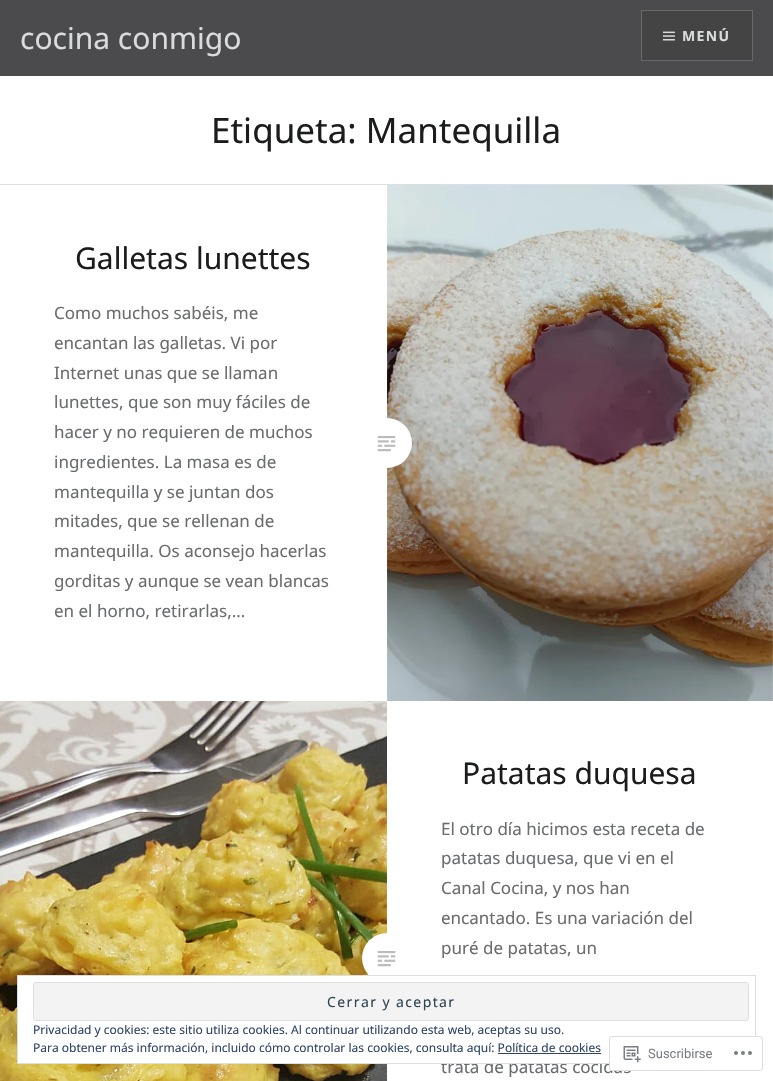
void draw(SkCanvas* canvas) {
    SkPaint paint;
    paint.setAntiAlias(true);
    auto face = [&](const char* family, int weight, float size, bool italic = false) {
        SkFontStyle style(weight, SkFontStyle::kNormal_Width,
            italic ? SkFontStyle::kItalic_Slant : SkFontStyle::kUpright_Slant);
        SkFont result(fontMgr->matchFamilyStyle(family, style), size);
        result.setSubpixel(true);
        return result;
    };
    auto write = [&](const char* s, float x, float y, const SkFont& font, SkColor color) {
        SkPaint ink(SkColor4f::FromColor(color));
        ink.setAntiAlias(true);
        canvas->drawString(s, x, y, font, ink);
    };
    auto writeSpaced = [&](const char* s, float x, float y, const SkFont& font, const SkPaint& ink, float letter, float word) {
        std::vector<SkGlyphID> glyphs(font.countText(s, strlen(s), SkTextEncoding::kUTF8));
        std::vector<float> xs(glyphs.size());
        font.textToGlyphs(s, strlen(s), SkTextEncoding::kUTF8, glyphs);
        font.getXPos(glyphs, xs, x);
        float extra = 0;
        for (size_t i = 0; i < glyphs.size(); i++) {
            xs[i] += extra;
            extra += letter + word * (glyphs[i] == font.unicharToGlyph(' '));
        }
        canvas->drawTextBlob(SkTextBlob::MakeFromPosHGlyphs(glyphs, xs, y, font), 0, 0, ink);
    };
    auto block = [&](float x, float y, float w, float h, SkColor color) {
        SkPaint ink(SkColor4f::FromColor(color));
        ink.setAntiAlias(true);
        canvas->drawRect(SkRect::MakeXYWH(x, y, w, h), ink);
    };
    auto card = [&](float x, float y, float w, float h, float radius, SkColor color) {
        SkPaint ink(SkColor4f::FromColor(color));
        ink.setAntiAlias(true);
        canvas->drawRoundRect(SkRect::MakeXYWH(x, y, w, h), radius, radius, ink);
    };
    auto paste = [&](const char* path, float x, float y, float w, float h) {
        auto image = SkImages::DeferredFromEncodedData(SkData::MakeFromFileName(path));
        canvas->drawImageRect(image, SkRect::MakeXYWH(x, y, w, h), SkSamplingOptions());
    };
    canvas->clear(SK_ColorWHITE);
    block(0, 0, 773, 76, SkColorSetRGB(75, 75, 77));
    auto kFont1 = face("Noto Sans", 400, 30);
    write("cocina conmigo", 20, 49, kFont1, SkColorSetRGB(218, 220, 220));
    paint.setColor(SkColorSetRGB(68, 68, 69));
    canvas->drawRect(SkRect::MakeXYWH(641.5f, 10.5f, 111, 50), paint);
    paint.setStyle(SkPaint::kStroke_Style);
    paint.setStrokeWidth(1);
    paint.setColor(SkColorSetRGB(105, 105, 106));
    canvas->drawRect(SkRect::MakeXYWH(641.5f, 10.5f, 111, 50), paint);
    paste("pic1.png", 663, 31, 12, 10);
    auto kFont2 = face("Noto Sans", 700, 14);
    paint.setStyle(SkPaint::kFill_Style);
    paint.setColor(SkColorSetRGB(218, 220, 220));
    writeSpaced("MENÚ", 682, 41, kFont2, paint, 1.4f, 0);
    block(0, 184, 773, 1, SkColorSetRGB(217, 223, 229));
    auto kFont3 = face("Noto Sans", 400, 35);
    write("Etiqueta: Mantequilla", 211, 143, kFont3, SkColorSetRGB(26, 28, 30));
    write("Galletas lunettes", 75, 269, kFont1, SkColorSetRGB(26, 28, 30));
    auto kFont4 = face("Noto Sans", 400, 17);
    write("Como muchos sabéis, me", 54, 319, kFont4, SkColorSetRGB(106, 108, 110));
    write("encantan las galletas. Vi por", 54, 349, kFont4, SkColorSetRGB(106, 108, 110));
    write("Internet unas que se llaman", 54, 379, kFont4, SkColorSetRGB(106, 108, 110));
    write("lunettes, que son muy fáciles de", 54, 408, kFont4, SkColorSetRGB(106, 108, 110));
    write("hacer y no requieren de muchos", 54, 438, kFont4, SkColorSetRGB(106, 108, 110));
    write("ingredientes. La masa es de", 54, 468, kFont4, SkColorSetRGB(106, 108, 110));
    write("mantequilla y se juntan dos", 54, 498, kFont4, SkColorSetRGB(106, 108, 110));
    write("mitades, que se rellenan de", 54, 527, kFont4, SkColorSetRGB(106, 108, 110));
    write("mantequilla. Os aconsejo hacerlas", 54, 557, kFont4, SkColorSetRGB(106, 108, 110));
    write("gorditas y aunque se vean blancas", 54, 587, kFont4, SkColorSetRGB(106, 108, 110));
    write("en el horno, retirarlas,…", 54, 617, kFont4, SkColorSetRGB(106, 108, 110));
    paste("pic3.png", 387, 185, 386, 516);
    paint.setColor(SK_ColorWHITE);
    canvas->drawCircle(387, 443, 25, paint);
    paste("pic2.png", 377, 436, 19, 16);
    paste("pic4.png", 0, 701, 387, 380);
    canvas->drawCircle(387, 958, 25, paint);
    write("Patatas duquesa", 462, 784, kFont1, SkColorSetRGB(26, 28, 30));
    write("El otro día hicimos esta receta de", 441, 835, kFont4, SkColorSetRGB(106, 108, 110));
    write("patatas duquesa, que vi en el", 441, 864, kFont4, SkColorSetRGB(106, 108, 110));
    write("Canal Cocina, y nos han", 441, 894, kFont4, SkColorSetRGB(106, 108, 110));
    write("encantado. Es una variación del", 441, 924, kFont4, SkColorSetRGB(106, 108, 110));
    write("puré de patatas, un", 441, 954, kFont4, SkColorSetRGB(106, 108, 110));
    write("trata de patatas cocidas", 441, 1073, kFont4, SkColorSetRGB(106, 108, 110));
    paste("pic2.png", 377, 951, 19, 16);
    block(18, 976, 594, 87, SK_ColorWHITE);
    paint.setStyle(SkPaint::kStroke_Style);
    paint.setColor(SkColorSetRGB(222, 222, 222));
    canvas->drawRect(SkRect::MakeXYWH(17.5f, 975.5f, 738, 88), paint);
    paint.setStyle(SkPaint::kFill_Style);
    paint.setColor(SkColorSetRGB(243, 243, 243));
    canvas->drawRoundRect(SkRect::MakeXYWH(33.5f, 982.5f, 715, 38), 2.5f, 2.5f, paint);
    paint.setStyle(SkPaint::kStroke_Style);
    paint.setColor(SkColorSetRGB(222, 222, 222));
    canvas->drawRoundRect(SkRect::MakeXYWH(33.5f, 982.5f, 715, 38), 2.5f, 2.5f, paint);
    auto kFont5 = face("Noto Sans", 400, 14);
    paint.setStyle(SkPaint::kFill_Style);
    paint.setColor(SkColorSetRGB(46, 68, 83));
    writeSpaced("Cerrar y aceptar", 327, 1007, kFont5, paint, 1.4f, 0);
    auto kFont6 = face("Noto Sans", 400, 12);
    write("Privacidad y cookies: este sitio utiliza cookies. Al continuar utilizando esta web, aceptas su uso.", 33, 1034, kFont6, SkColorSetRGB(46, 68, 103));
    write("Para obtener más información, incluido cómo controlar las cookies, consulta aquí: Política de cookies", 33, 1052, kFont6, SkColorSetRGB(46, 68, 103));
    block(498, 1053, 103, 1, SkColorSetRGB(46, 68, 103));
    card(609, 1036, 154, 35, 3, SkColorSetARGB(250, 255, 255, 255));
    paint.setStyle(SkPaint::kStroke_Style);
    paint.setColor(SkColorSetARGB(250, 220, 220, 222));
    canvas->drawRoundRect(SkRect::MakeXYWH(609.5f, 1036.5f, 153, 34), 2.5f, 2.5f, paint);
    paste("pic5.png", 623, 1046, 18, 17);
    auto kFont7 = face("Roboto", 400, 13);
    write("Suscribirse", 648, 1058, kFont7, SkColorSetRGB(123, 127, 133));
    paste("pic6.png", 734, 1051, 18, 4);
}
